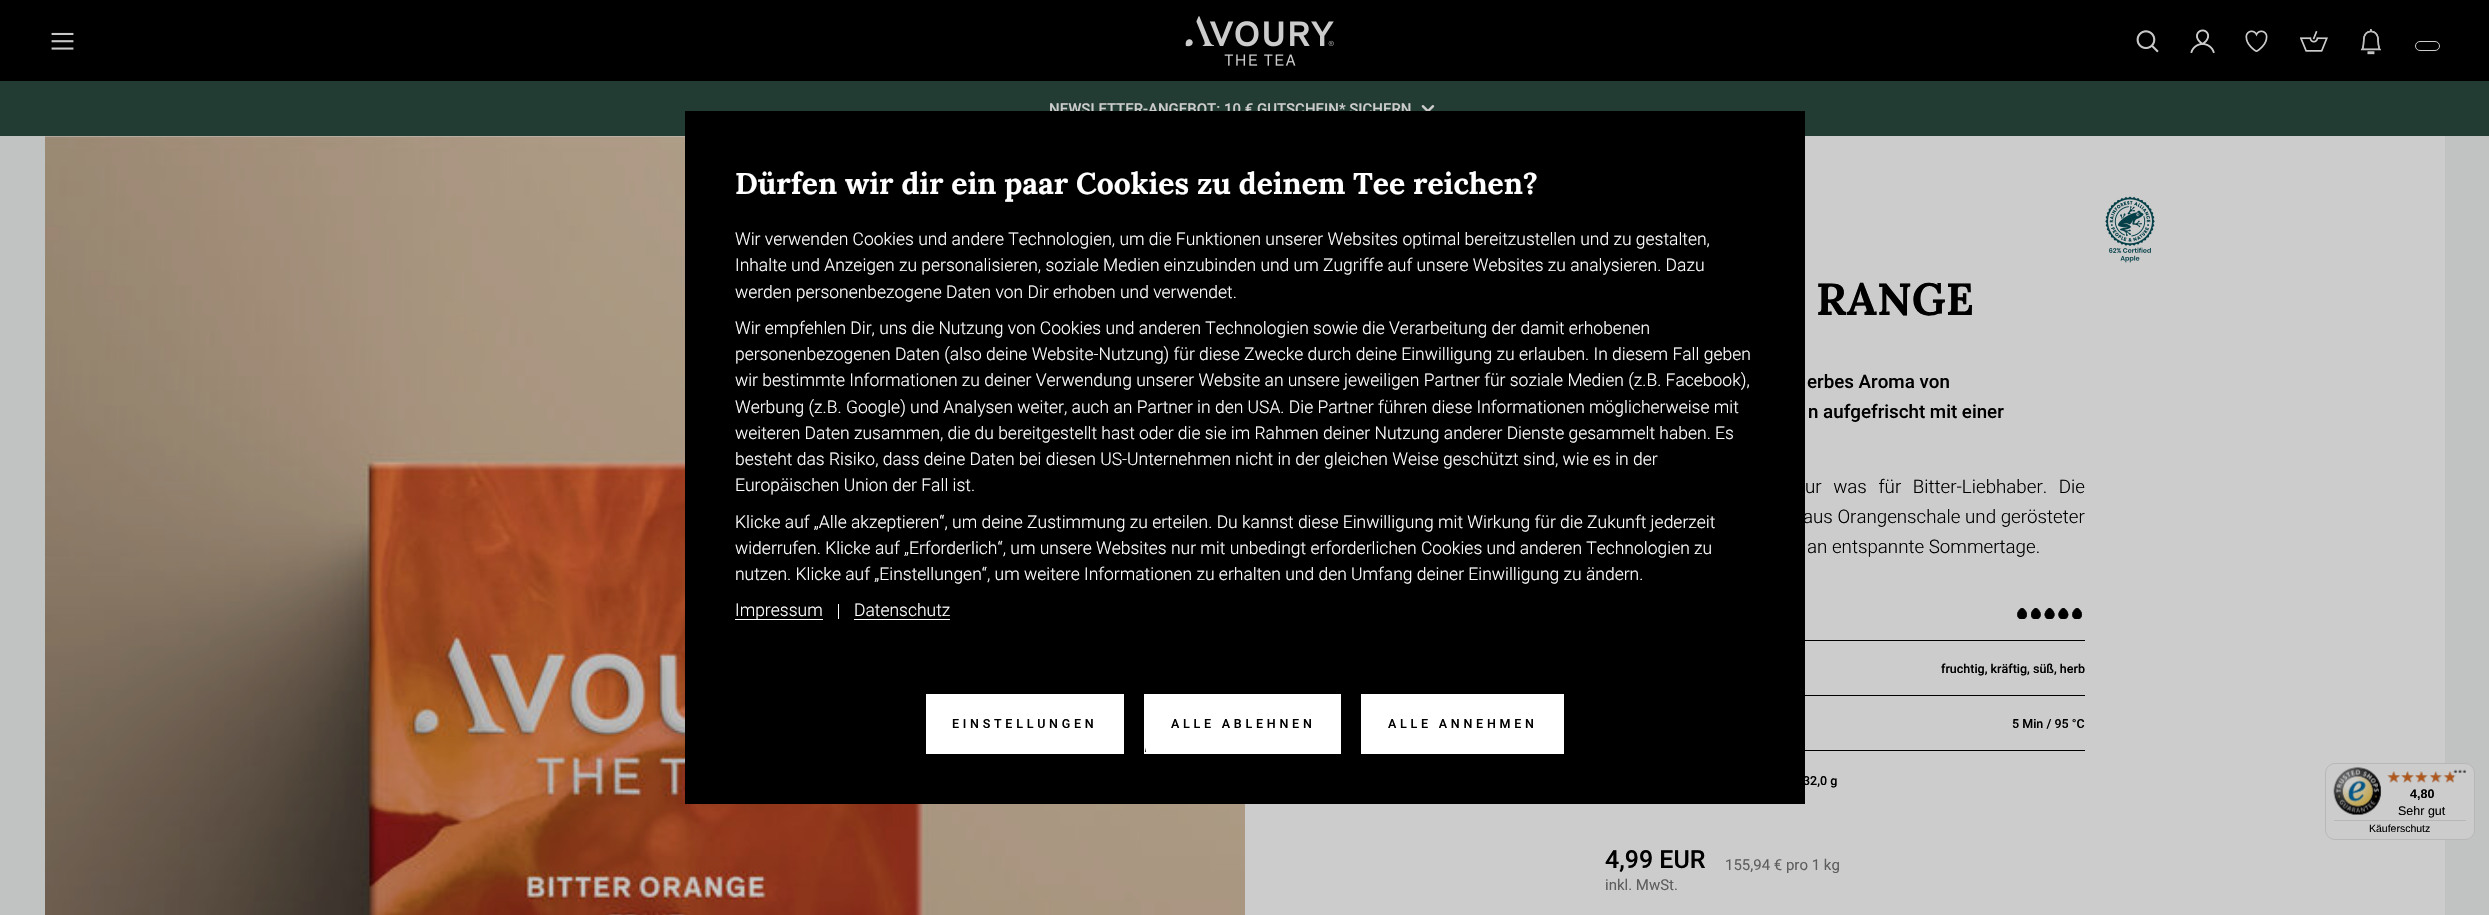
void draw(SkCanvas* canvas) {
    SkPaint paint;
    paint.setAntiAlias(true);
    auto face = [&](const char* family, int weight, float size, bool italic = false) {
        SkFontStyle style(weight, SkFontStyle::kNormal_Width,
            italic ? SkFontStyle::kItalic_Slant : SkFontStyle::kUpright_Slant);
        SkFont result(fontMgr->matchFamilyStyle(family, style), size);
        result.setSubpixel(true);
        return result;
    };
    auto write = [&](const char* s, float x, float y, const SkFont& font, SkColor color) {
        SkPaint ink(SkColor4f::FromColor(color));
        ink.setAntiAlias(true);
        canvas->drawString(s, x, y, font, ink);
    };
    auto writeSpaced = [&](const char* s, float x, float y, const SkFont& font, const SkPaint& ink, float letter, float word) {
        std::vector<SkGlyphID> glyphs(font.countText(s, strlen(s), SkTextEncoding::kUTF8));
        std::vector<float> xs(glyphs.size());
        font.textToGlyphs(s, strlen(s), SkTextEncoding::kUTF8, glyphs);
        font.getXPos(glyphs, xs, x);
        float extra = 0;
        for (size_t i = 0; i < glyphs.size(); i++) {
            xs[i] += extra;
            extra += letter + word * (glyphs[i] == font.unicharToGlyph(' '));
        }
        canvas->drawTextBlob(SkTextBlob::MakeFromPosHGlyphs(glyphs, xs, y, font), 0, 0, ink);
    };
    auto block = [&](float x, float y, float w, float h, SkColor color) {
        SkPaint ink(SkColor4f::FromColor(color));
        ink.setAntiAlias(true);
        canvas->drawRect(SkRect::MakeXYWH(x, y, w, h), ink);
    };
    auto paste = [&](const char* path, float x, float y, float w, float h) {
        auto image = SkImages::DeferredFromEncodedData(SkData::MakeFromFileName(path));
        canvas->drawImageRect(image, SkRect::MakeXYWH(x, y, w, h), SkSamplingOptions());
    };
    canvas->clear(SkColorSetRGB(193, 194, 194));
    block(0, 0, 2489, 81, SK_ColorBLACK);
    paste("pic1.png", 51, 32, 23, 18);
    paste("pic2.png", 1185, 16, 149, 50);
    paste("pic3.png", 2136, 30, 23, 23);
    paste("pic4.png", 2190, 29, 25, 25);
    paste("pic5.png", 2245, 30, 23, 22);
    paste("pic6.png", 2300, 30, 28, 22);
    paste("pic7.png", 2360, 29, 21, 26);
    paint.setStyle(SkPaint::kStroke_Style);
    paint.setStrokeWidth(1);
    paint.setColor(SkColorSetRGB(204, 204, 204));
    canvas->drawRoundRect(SkRect::MakeXYWH(2415.5f, 41.5f, 24, 9), 4.5f, 4.5f, paint);
    block(0, 81, 2489, 55, SkColorSetRGB(34, 59, 51));
    auto kFont1 = face("Roboto", 500, 15);
    write("NEWSLETTER-ANGEBOT: 10 € GUTSCHEIN* SICHERN", 1049, 114, kFont1, SkColorSetRGB(204, 204, 204));
    paste("pic8.png", 1421, 105, 14, 6);
    block(45, 136, 2400, 779, SkColorSetRGB(204, 204, 204));
    paste("pic9.png", 45, 136, 1200, 779);
    paste("pic10.png", 2105, 196, 50, 67);
    auto kFont2 = face("Lora", 700, 45);
    write("RANGE", 1816, 315, kFont2, SK_ColorBLACK);
    auto kFont3 = face("Roboto", 500, 18.75f);
    write("erbes Aroma von", 1807, 388, kFont3, SK_ColorBLACK);
    write("n aufgefrischt mit einer", 1808, 418, kFont3, SK_ColorBLACK);
    auto kFont4 = face("Roboto", 300, 18.75f);
    paint.setStyle(SkPaint::kFill_Style);
    paint.setColor(SK_ColorBLACK);
    writeSpaced("ur was für Bitter-Liebhaber. Die", 1805, 493, kFont4, paint, 0, 7);
    write("aus Orangenschale und gerösteter", 1803, 523, kFont4, SK_ColorBLACK);
    write("an entspannte Sommertage.", 1807, 553, kFont4, SK_ColorBLACK);
    block(1805, 640, 280, 1, SK_ColorBLACK);
    paste("pic11.png", 2017, 608, 10, 11);
    paste("pic12.png", 2031, 608, 10, 11);
    paste("pic13.png", 2044, 608, 11, 11);
    paste("pic14.png", 2058, 608, 11, 11);
    paste("pic11.png", 2072, 608, 10, 11);
    block(1805, 695, 280, 1, SK_ColorBLACK);
    auto kFont5 = face("Roboto", 500, 12.5f);
    write("fruchtig, kräftig, süß, herb", 1941, 673, kFont5, SK_ColorBLACK);
    block(1805, 750, 280, 1, SK_ColorBLACK);
    write("5 Min / 95 °C", 2012, 728, kFont5, SK_ColorBLACK);
    write("32,0 g", 1803, 785, kFont5, SK_ColorBLACK);
    auto kFont6 = face("Roboto", 500, 25);
    write("4,99 EUR", 1605, 868, kFont6, SK_ColorBLACK);
    auto kFont7 = face("Roboto", 400, 15);
    write("inkl. MwSt.", 1605, 890, kFont7, SkColorSetRGB(94, 94, 94));
    write("155,94 € pro 1 kg", 1725, 870, kFont7, SkColorSetRGB(94, 94, 94));
    paint.setColor(SkColorSetRGB(204, 204, 204));
    canvas->drawRoundRect(SkRect::MakeXYWH(2325.5f, 763.5f, 149, 76), 9.5f, 9.5f, paint);
    paint.setStyle(SkPaint::kStroke_Style);
    paint.setColor(SkColorSetRGB(183, 183, 183));
    canvas->drawRoundRect(SkRect::MakeXYWH(2325.5f, 763.5f, 149, 76), 9.5f, 9.5f, paint);
    paste("pic26.png", 2444, 771, 12, 12);
    paste("pic21.png", 2443, 771, 11, 12);
    paste("pic15.png", 2453, 769, 13, 4);
    paste("pic16.png", 2333, 767, 49, 48);
    paste("pic22.png", 2388, 771, 12, 12);
    paste("pic17.png", 2387, 771, 13, 12);
    paste("pic23.png", 2401, 771, 13, 12);
    paste("pic18.png", 2401, 771, 13, 12);
    paste("pic24.png", 2416, 771, 11, 12);
    paste("pic19.png", 2415, 771, 13, 12);
    paste("pic25.png", 2430, 771, 13, 12);
    paste("pic20.png", 2430, 771, 12, 12);
    auto kFont8 = face("Liberation Sans", 700, 12.5f);
    write("4,80", 2410, 798, kFont8, SK_ColorBLACK);
    auto kFont9 = face("Liberation Sans", 400, 12.5f);
    write("Sehr gut", 2398, 815, kFont9, SK_ColorBLACK);
    block(2334, 820, 132, 1, SkColorSetRGB(183, 183, 183));
    auto kFont10 = face("Liberation Sans", 400, 10.5f);
    write("Käuferschutz", 2369, 832, kFont10, SK_ColorBLACK);
    block(685, 111, 1120, 693, SK_ColorBLACK);
    auto kFont11 = face("Lora", 700, 30);
    write("Dürfen wir dir ein paar Cookies zu deinem Tee reichen?", 735, 194, kFont11, SK_ColorWHITE);
    auto kFont12 = face("Roboto", 300, 17.5f);
    write("Wir verwenden Cookies und andere Technologien, um die Funktionen unserer Websites optimal bereitzustellen und zu gestalten,", 735, 245, kFont12, SK_ColorWHITE);
    write("Inhalte und Anzeigen zu personalisieren, soziale Medien einzubinden und um Zugriffe auf unsere Websites zu analysieren. Dazu", 735, 271, kFont12, SK_ColorWHITE);
    write("werden personenbezogene Daten von Dir erhoben und verwendet.", 735, 298, kFont12, SK_ColorWHITE);
    write("Wir empfehlen Dir, uns die Nutzung von Cookies und anderen Technologien sowie die Verarbeitung der damit erhobenen", 735, 334, kFont12, SK_ColorWHITE);
    write("personenbezogenen Daten (also deine Website-Nutzung) für diese Zwecke durch deine Einwilligung zu erlauben. In diesem Fall geben", 735, 360, kFont12, SK_ColorWHITE);
    write("wir bestimmte Informationen zu deiner Verwendung unserer Website an unsere jeweiligen Partner für soziale Medien (z.B. Facebook),", 735, 386, kFont12, SK_ColorWHITE);
    write("Werbung (z.B. Google) und Analysen weiter, auch an Partner in den USA. Die Partner führen diese Informationen möglicherweise mit", 735, 413, kFont12, SK_ColorWHITE);
    write("weiteren Daten zusammen, die du bereitgestellt hast oder die sie im Rahmen deiner Nutzung anderer Dienste gesammelt haben. Es", 735, 439, kFont12, SK_ColorWHITE);
    write("besteht das Risiko, dass deine Daten bei diesen US-Unternehmen nicht in der gleichen Weise geschützt sind, wie es in der", 735, 465, kFont12, SK_ColorWHITE);
    write("Europäischen Union der Fall ist.", 735, 491, kFont12, SK_ColorWHITE);
    write("Klicke auf „Alle akzeptieren“, um deine Zustimmung zu erteilen. Du kannst diese Einwilligung mit Wirkung für die Zukunft jederzeit", 735, 528, kFont12, SK_ColorWHITE);
    write("widerrufen. Klicke auf „Erforderlich“, um unsere Websites nur mit unbedingt erforderlichen Cookies und anderen Technologien zu", 735, 554, kFont12, SK_ColorWHITE);
    write("nutzen. Klicke auf „Einstellungen“, um weitere Informationen zu erhalten und den Umfang deiner Einwilligung zu ändern.", 735, 580, kFont12, SK_ColorWHITE);
    block(735, 619, 88, 1, SK_ColorWHITE);
    write("Impressum", 735, 616, kFont12, SK_ColorWHITE);
    block(838, 604, 1, 15, SK_ColorWHITE);
    write("Datenschutz", 854, 616, kFont12, SK_ColorWHITE);
    block(854, 619, 96, 1, SK_ColorWHITE);
    block(926, 694, 198, 60, SK_ColorWHITE);
    paint.setStyle(SkPaint::kFill_Style);
    paint.setColor(SK_ColorBLACK);
    writeSpaced("EINSTELLUNGEN", 952, 728, kFont5, paint, 3.75f, 0);
    block(1144, 694, 197, 60, SK_ColorWHITE);
    writeSpaced("ALLE ABLEHNEN", 1171, 728, kFont5, paint, 3.75f, 0);
    canvas->save();
    canvas->clipRect(SkRect::MakeXYWH(1145, 695, 195, 58));
    canvas->drawPath(SkPathBuilder().moveTo(890, 695).lineTo(1133, 695).lineTo(1146, 752).lineTo(902, 752).close().detach(), paint);
    canvas->restore();
    block(1361, 694, 203, 60, SK_ColorWHITE);
    writeSpaced("ALLE ANNEHMEN", 1388, 728, kFont5, paint, 3.75f, 0);
}
